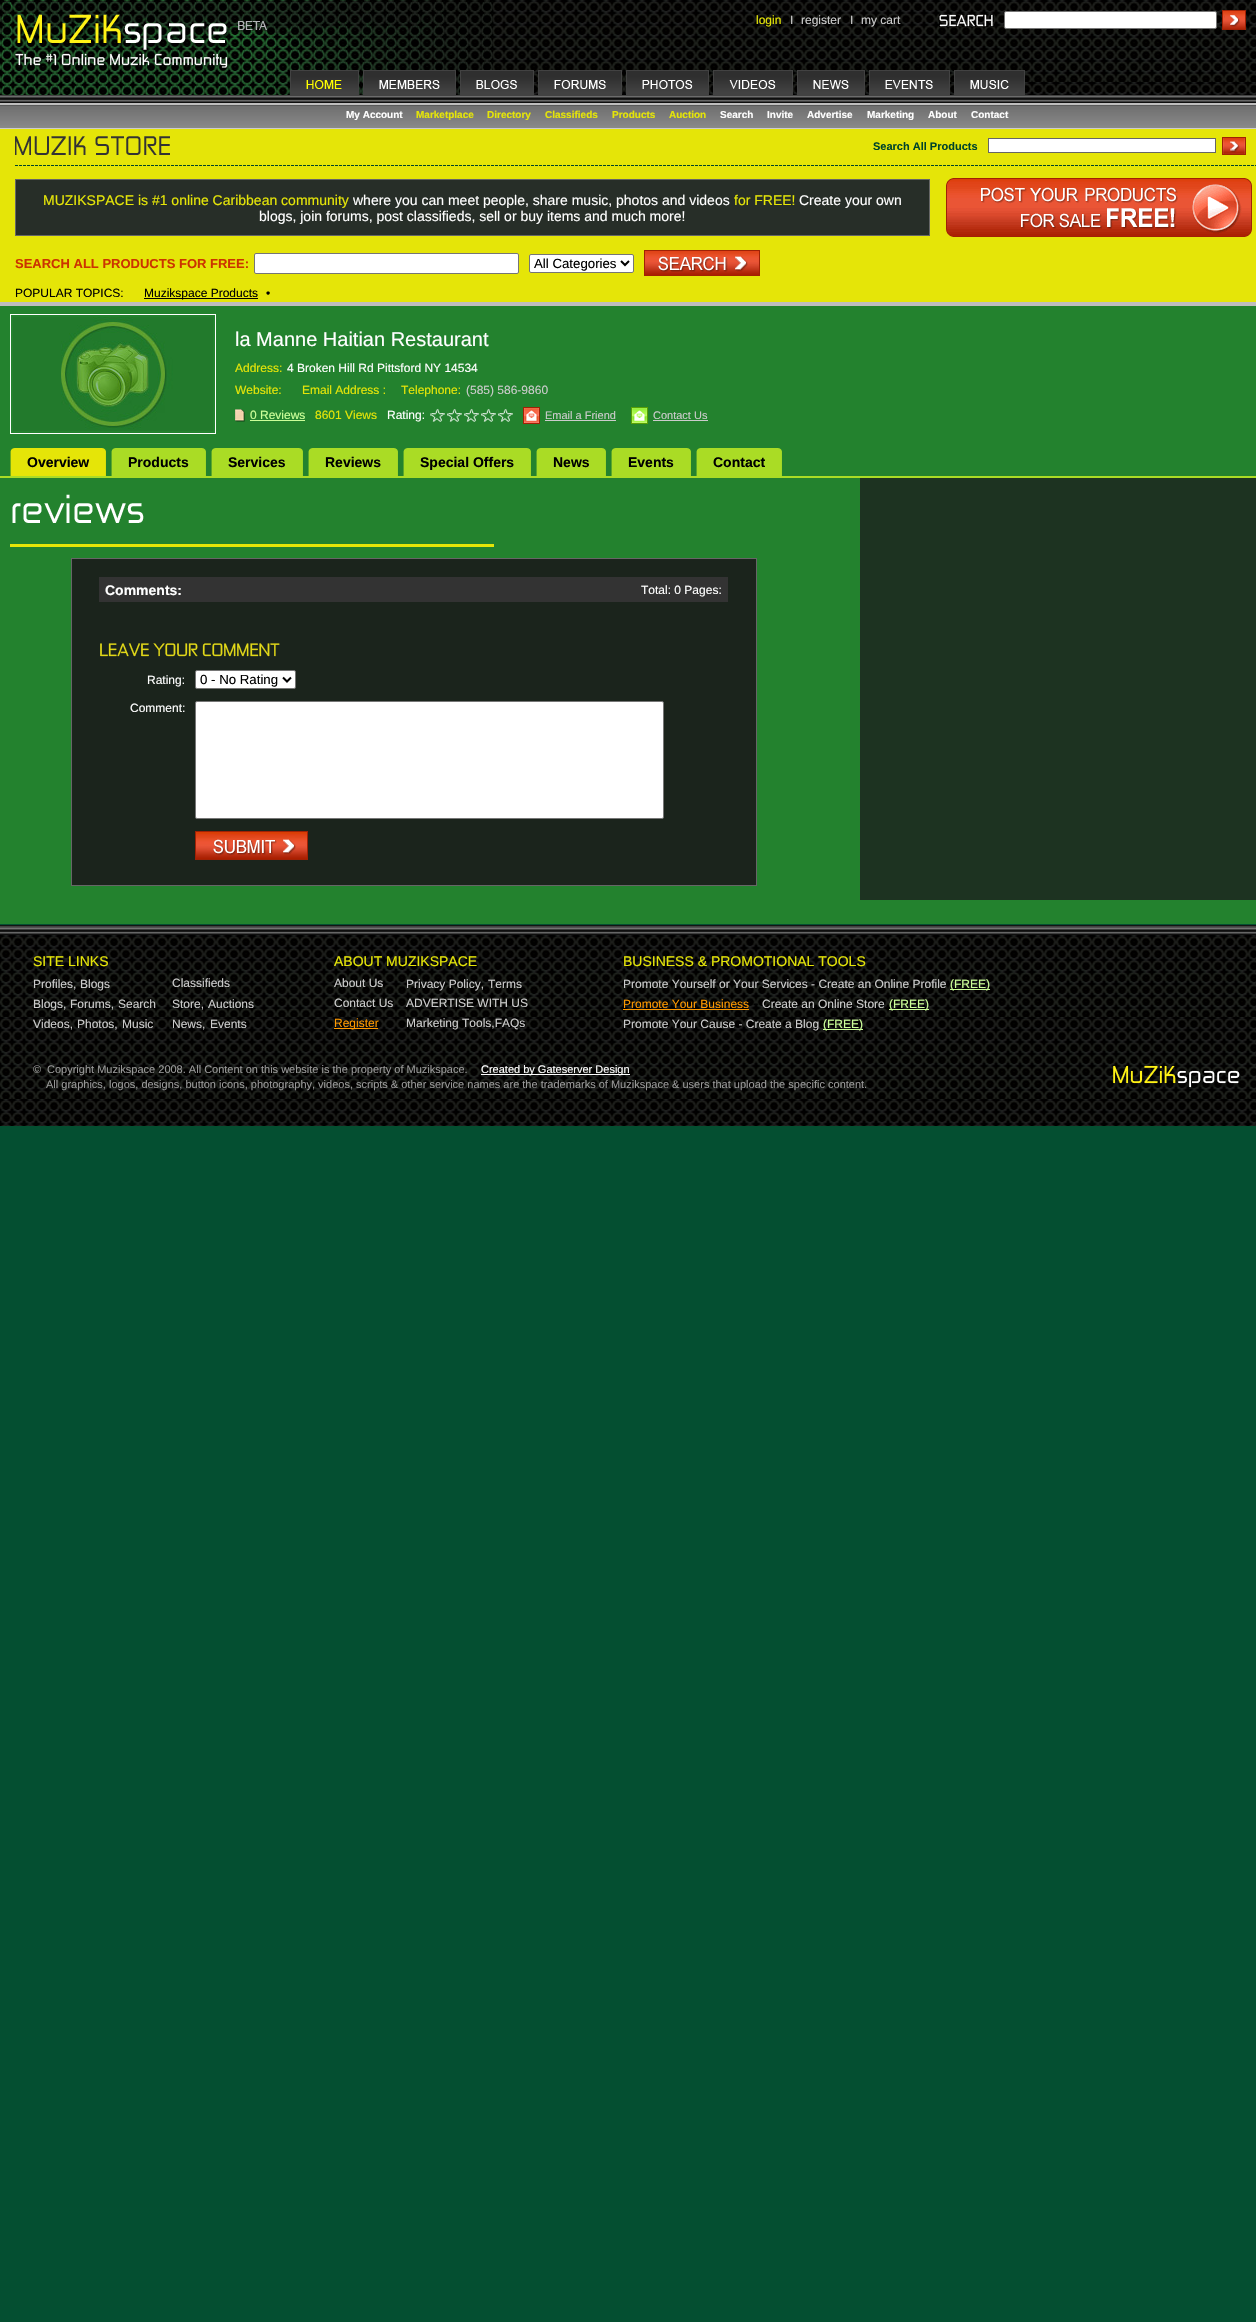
void draw(SkCanvas* canvas) {
    SkPaint paint;
    paint.setAntiAlias(true);
    auto face = [&](const char* family, int weight, float size, bool italic = false) {
        SkFontStyle style(weight, SkFontStyle::kNormal_Width,
            italic ? SkFontStyle::kItalic_Slant : SkFontStyle::kUpright_Slant);
        SkFont result(fontMgr->matchFamilyStyle(family, style), size);
        result.setSubpixel(true);
        return result;
    };
    auto write = [&](const char* s, float x, float y, const SkFont& font, SkColor color) {
        SkPaint ink(SkColor4f::FromColor(color));
        ink.setAntiAlias(true);
        canvas->drawString(s, x, y, font, ink);
    };
    auto block = [&](float x, float y, float w, float h, SkColor color) {
        SkPaint ink(SkColor4f::FromColor(color));
        ink.setAntiAlias(true);
        canvas->drawRect(SkRect::MakeXYWH(x, y, w, h), ink);
    };
    auto paste = [&](const char* path, float x, float y, float w, float h) {
        auto image = SkImages::DeferredFromEncodedData(SkData::MakeFromFileName(path));
        canvas->drawImageRect(image, SkRect::MakeXYWH(x, y, w, h), SkSamplingOptions());
    };
    canvas->clear(SkColorSetRGB(4, 79, 49));
    paste("pic1.png", 493, 0, 763, 95);
    paste("pic2.png", 0, 0, 493, 95);
    paste("pic3.png", 15, 14, 252, 56);
    auto kFont1 = face("Liberation Sans", 400, 12);
    write("login", 756, 24, kFont1, SkColorSetRGB(229, 229, 8));
    write("I", 790, 24, kFont1, SkColorSetRGB(204, 204, 204));
    write("register", 801, 24, kFont1, SkColorSetRGB(204, 204, 204));
    write("I", 850, 24, kFont1, SkColorSetRGB(204, 204, 204));
    write("my cart", 861, 24, kFont1, SkColorSetRGB(204, 204, 204));
    paste("pic4.png", 939, 14, 55, 13);
    paint.setColor(SK_ColorWHITE);
    canvas->drawRoundRect(SkRect::MakeXYWH(1004.5f, 11.5f, 212, 17), 1.5f, 1.5f, paint);
    paint.setStyle(SkPaint::kStroke_Style);
    paint.setStrokeWidth(1);
    paint.setColor(SkColorSetRGB(118, 118, 118));
    canvas->drawRoundRect(SkRect::MakeXYWH(1004.5f, 11.5f, 212, 17), 1.5f, 1.5f, paint);
    paste("pic5.png", 1222, 10, 24, 20);
    paste("pic6.png", 291, 70, 67, 24);
    block(358, 70, 1, 25, SkColorSetRGB(66, 66, 66));
    block(290, 94, 69, 1, SkColorSetRGB(66, 66, 66));
    block(290, 70, 1, 25, SkColorSetRGB(66, 66, 66));
    paste("pic7.png", 306, 80, 36, 9);
    paste("pic8.png", 364, 70, 91, 24);
    block(455, 70, 1, 25, SkColorSetRGB(66, 66, 66));
    block(363, 94, 93, 1, SkColorSetRGB(66, 66, 66));
    block(363, 70, 1, 25, SkColorSetRGB(66, 66, 66));
    paste("pic9.png", 379, 80, 61, 9);
    paste("pic10.png", 461, 70, 72, 24);
    block(533, 70, 1, 25, SkColorSetRGB(66, 66, 66));
    block(460, 94, 74, 1, SkColorSetRGB(66, 66, 66));
    block(460, 70, 1, 25, SkColorSetRGB(66, 66, 66));
    paste("pic11.png", 476, 80, 41, 9);
    paste("pic12.png", 539, 70, 82, 24);
    block(621, 70, 1, 25, SkColorSetRGB(66, 66, 66));
    block(538, 94, 84, 1, SkColorSetRGB(66, 66, 66));
    block(538, 70, 1, 25, SkColorSetRGB(66, 66, 66));
    paste("pic13.png", 554, 80, 52, 9);
    paste("pic14.png", 627, 70, 81, 24);
    block(708, 70, 1, 25, SkColorSetRGB(66, 66, 66));
    block(626, 94, 83, 1, SkColorSetRGB(66, 66, 66));
    block(626, 70, 1, 25, SkColorSetRGB(66, 66, 66));
    paste("pic15.png", 642, 80, 51, 9);
    paste("pic16.png", 714, 70, 78, 24);
    block(792, 70, 1, 25, SkColorSetRGB(66, 66, 66));
    block(713, 94, 80, 1, SkColorSetRGB(66, 66, 66));
    block(713, 70, 1, 25, SkColorSetRGB(66, 66, 66));
    paste("pic17.png", 729, 80, 47, 9);
    paste("pic18.png", 798, 70, 66, 24);
    block(864, 70, 1, 25, SkColorSetRGB(66, 66, 66));
    block(797, 94, 68, 1, SkColorSetRGB(66, 66, 66));
    block(797, 70, 1, 25, SkColorSetRGB(66, 66, 66));
    paste("pic19.png", 813, 80, 36, 9);
    paste("pic20.png", 870, 70, 79, 24);
    block(949, 70, 1, 25, SkColorSetRGB(66, 66, 66));
    block(869, 94, 81, 1, SkColorSetRGB(66, 66, 66));
    block(869, 70, 1, 25, SkColorSetRGB(66, 66, 66));
    paste("pic21.png", 885, 80, 48, 9);
    paste("pic22.png", 955, 70, 69, 24);
    block(1024, 70, 1, 25, SkColorSetRGB(66, 66, 66));
    block(954, 94, 71, 1, SkColorSetRGB(66, 66, 66));
    block(954, 70, 1, 25, SkColorSetRGB(66, 66, 66));
    paste("pic23.png", 970, 80, 39, 9);
    block(0, 129, 1256, 173, SkColorSetRGB(229, 229, 8));
    paste("pic24.png", 0, 95, 1256, 34);
    auto kFont2 = face("Liberation Sans", 700, 10);
    write("My Account", 346, 118, kFont2, SK_ColorWHITE);
    write("Marketplace", 416, 118, kFont2, SkColorSetRGB(229, 229, 8));
    write("Directory", 487, 118, kFont2, SkColorSetRGB(229, 229, 8));
    write("Classifieds", 545, 118, kFont2, SkColorSetRGB(229, 229, 8));
    write("Products", 612, 118, kFont2, SkColorSetRGB(229, 229, 8));
    write("Auction", 669, 118, kFont2, SkColorSetRGB(229, 229, 8));
    write("Search", 720, 118, kFont2, SK_ColorWHITE);
    write("Invite", 767, 118, kFont2, SK_ColorWHITE);
    write("Advertise", 807, 118, kFont2, SK_ColorWHITE);
    write("Marketing", 867, 118, kFont2, SK_ColorWHITE);
    write("About", 928, 118, kFont2, SK_ColorWHITE);
    write("Contact", 971, 118, kFont2, SK_ColorWHITE);
    paste("pic25.png", 15, 136, 155, 19);
    auto kFont3 = face("Liberation Sans", 700, 11);
    write("Search All Products", 873, 150, kFont3, SkColorSetRGB(0, 68, 42));
    paint.setStyle(SkPaint::kFill_Style);
    paint.setColor(SK_ColorWHITE);
    canvas->drawRect(SkRect::MakeXYWH(988.5f, 138.5f, 227, 14), paint);
    paint.setStyle(SkPaint::kStroke_Style);
    paint.setColor(SkColorSetRGB(102, 102, 102));
    canvas->drawRect(SkRect::MakeXYWH(988.5f, 138.5f, 227, 14), paint);
    paste("pic26.png", 1222, 137, 24, 18);
    paste("pic27.png", 15, 165, 1241, 1);
    paint.setStyle(SkPaint::kFill_Style);
    paint.setColor(SkColorSetRGB(39, 46, 40));
    canvas->drawRect(SkRect::MakeXYWH(15.5f, 179.5f, 914, 56), paint);
    paint.setStyle(SkPaint::kStroke_Style);
    paint.setColor(SkColorSetRGB(102, 102, 102));
    canvas->drawRect(SkRect::MakeXYWH(15.5f, 179.5f, 914, 56), paint);
    auto kFont4 = face("Liberation Sans", 400, 14);
    write("MUZIKSPACE is #1 online Caribbean community", 43, 205, kFont4, SkColorSetRGB(229, 229, 8));
    write("where you can meet people, share music, photos and videos", 353, 205, kFont4, SK_ColorWHITE);
    write("for FREE!", 734, 205, kFont4, SkColorSetRGB(229, 229, 8));
    write("Create your own", 799, 205, kFont4, SK_ColorWHITE);
    write("blogs, join forums, post classifieds, sell or buy items and much more!", 259, 221, kFont4, SK_ColorWHITE);
    paste("pic28.png", 946, 178, 306, 59);
    auto kFont5 = face("Liberation Sans", 700, 13);
    write("SEARCH ALL PRODUCTS FOR FREE:", 15, 268, kFont5, SkColorSetRGB(204, 51, 0));
    paint.setStyle(SkPaint::kFill_Style);
    paint.setColor(SK_ColorWHITE);
    canvas->drawRoundRect(SkRect::MakeXYWH(254.5f, 253.5f, 264, 20), 1.5f, 1.5f, paint);
    paint.setStyle(SkPaint::kStroke_Style);
    paint.setColor(SkColorSetRGB(118, 118, 118));
    canvas->drawRoundRect(SkRect::MakeXYWH(254.5f, 253.5f, 264, 20), 1.5f, 1.5f, paint);
    paint.setStyle(SkPaint::kFill_Style);
    paint.setColor(SK_ColorWHITE);
    canvas->drawRoundRect(SkRect::MakeXYWH(529.5f, 254.5f, 104, 18), 1.5f, 1.5f, paint);
    paint.setStyle(SkPaint::kStroke_Style);
    paint.setColor(SkColorSetRGB(118, 118, 118));
    canvas->drawRoundRect(SkRect::MakeXYWH(529.5f, 254.5f, 104, 18), 1.5f, 1.5f, paint);
    paint.setStrokeWidth(2);
    paint.setColor(SK_ColorBLACK);
    canvas->drawPath(SkPathBuilder().moveTo(621, 261).lineTo(625, 265).lineTo(629, 261).detach(), paint);
    auto kFont6 = face("Liberation Sans", 400, 13.25f);
    write("All Categories", 534, 268, kFont6, SK_ColorBLACK);
    paste("pic29.png", 644, 250, 116, 26);
    write("POPULAR TOPICS:", 15, 297, kFont1, SK_ColorBLACK);
    block(144, 298, 114, 1, SK_ColorBLACK);
    write("Muzikspace Products", 144, 297, kFont1, SK_ColorBLACK);
    write("•", 266, 297, kFont1, SK_ColorBLACK);
    block(0, 302, 1256, 4, SkColorSetRGB(190, 189, 189));
    block(0, 306, 1256, 618, SkColorSetRGB(35, 130, 46));
    paint.setStrokeWidth(1);
    paint.setColor(SK_ColorWHITE);
    canvas->drawRect(SkRect::MakeXYWH(10.5f, 314.5f, 205, 119), paint);
    paste("pic30.png", 13, 317, 200, 114);
    auto kFont7 = face("Liberation Sans", 400, 20);
    write("la Manne Haitian Restaurant", 235, 346, kFont7, SK_ColorWHITE);
    write("Address:", 235, 372, kFont1, SkColorSetRGB(229, 229, 8));
    write("4 Broken Hill Rd Pittsford NY 14534", 287, 372, kFont1, SK_ColorWHITE);
    write("Website:", 235, 394, kFont1, SkColorSetRGB(229, 229, 8));
    write("Email Address :", 302, 394, kFont1, SkColorSetRGB(229, 229, 8));
    write("Telephone:", 401, 394, kFont1, SkColorSetRGB(229, 229, 8));
    write("(585) 586-9860", 466, 394, kFont1, SkColorSetRGB(204, 204, 204));
    paste("pic31.png", 235, 409, 10, 13);
    write("0 Reviews", 250, 419, kFont1, SkColorSetRGB(204, 255, 153));
    block(250, 420, 55, 1, SkColorSetRGB(204, 255, 153));
    write("8601 Views", 315, 419, kFont1, SkColorSetRGB(229, 229, 8));
    write("Rating:", 387, 419, kFont1, SK_ColorWHITE);
    paste("pic32.png", 430, 409, 83, 13);
    paste("pic33.png", 523, 407, 17, 17);
    auto kFont8 = face("Liberation Sans", 400, 11);
    write("Email a Friend", 545, 419, kFont8, SkColorSetRGB(204, 204, 204));
    block(545, 420, 71, 1, SkColorSetRGB(204, 204, 204));
    paste("pic34.png", 631, 407, 17, 17);
    write("Contact Us", 653, 419, kFont8, SkColorSetRGB(204, 204, 204));
    block(653, 420, 55, 1, SkColorSetRGB(204, 204, 204));
    paste("pic35.png", 10, 448, 5, 28);
    block(15, 448, 86, 28, SkColorSetRGB(229, 229, 8));
    paste("pic36.png", 101, 448, 5, 28);
    auto kFont9 = face("Liberation Sans", 700, 14);
    write("Overview", 27, 467, kFont9, SK_ColorBLACK);
    paste("pic37.png", 111, 448, 5, 28);
    block(116, 448, 85, 28, SkColorSetRGB(170, 220, 37));
    paste("pic38.png", 201, 448, 5, 28);
    write("Products", 128, 467, kFont9, SK_ColorBLACK);
    paste("pic37.png", 211, 448, 5, 28);
    block(216, 448, 82, 28, SkColorSetRGB(170, 220, 37));
    paste("pic38.png", 298, 448, 5, 28);
    write("Services", 228, 467, kFont9, SK_ColorBLACK);
    paste("pic37.png", 308, 448, 5, 28);
    block(313, 448, 80, 28, SkColorSetRGB(170, 220, 37));
    paste("pic38.png", 393, 448, 5, 28);
    write("Reviews", 325, 467, kFont9, SK_ColorBLACK);
    paste("pic37.png", 403, 448, 5, 28);
    block(408, 448, 118, 28, SkColorSetRGB(170, 220, 37));
    paste("pic38.png", 526, 448, 5, 28);
    write("Special Offers", 420, 467, kFont9, SK_ColorBLACK);
    paste("pic37.png", 536, 448, 5, 28);
    block(541, 448, 60, 28, SkColorSetRGB(170, 220, 37));
    paste("pic38.png", 601, 448, 5, 28);
    write("News", 553, 467, kFont9, SK_ColorBLACK);
    paste("pic37.png", 611, 448, 5, 28);
    block(616, 448, 70, 28, SkColorSetRGB(170, 220, 37));
    paste("pic38.png", 686, 448, 5, 28);
    write("Events", 628, 467, kFont9, SK_ColorBLACK);
    paste("pic37.png", 696, 448, 5, 28);
    block(701, 448, 76, 28, SkColorSetRGB(170, 220, 37));
    paste("pic38.png", 777, 448, 5, 28);
    write("Contact", 713, 467, kFont9, SK_ColorBLACK);
    block(0, 476, 1256, 2, SkColorSetRGB(170, 220, 37));
    paste("pic39.png", 12, 494, 132, 29);
    block(10, 544, 484, 3, SkColorSetRGB(229, 229, 8));
    paint.setStyle(SkPaint::kFill_Style);
    paint.setColor(SkColorSetRGB(27, 36, 28));
    canvas->drawRect(SkRect::MakeXYWH(71.5f, 558.5f, 685, 327), paint);
    paint.setStyle(SkPaint::kStroke_Style);
    paint.setColor(SkColorSetRGB(102, 102, 102));
    canvas->drawRect(SkRect::MakeXYWH(71.5f, 558.5f, 685, 327), paint);
    block(99, 577, 629, 25, SkColorSetRGB(51, 51, 51));
    write("Comments:", 105, 595, kFont9, SK_ColorWHITE);
    write("Total: 0 Pages:", 641, 594, kFont1, SK_ColorWHITE);
    paste("pic40.png", 100, 643, 180, 14);
    write("Rating:", 147, 684, kFont1, SK_ColorWHITE);
    paint.setStyle(SkPaint::kFill_Style);
    paint.setColor(SK_ColorWHITE);
    canvas->drawRoundRect(SkRect::MakeXYWH(195.5f, 670.5f, 100, 18), 1.5f, 1.5f, paint);
    paint.setStyle(SkPaint::kStroke_Style);
    paint.setColor(SkColorSetRGB(118, 118, 118));
    canvas->drawRoundRect(SkRect::MakeXYWH(195.5f, 670.5f, 100, 18), 1.5f, 1.5f, paint);
    paint.setStrokeWidth(2);
    paint.setColor(SK_ColorBLACK);
    canvas->drawPath(SkPathBuilder().moveTo(283, 677.5f).lineTo(287, 681.5f).lineTo(291, 677.5f).detach(), paint);
    write("0 - No Rating", 200, 684, kFont6, SK_ColorBLACK);
    write("Comment:", 130, 712, kFont1, SK_ColorWHITE);
    paint.setStyle(SkPaint::kFill_Style);
    paint.setColor(SK_ColorWHITE);
    canvas->drawRoundRect(SkRect::MakeXYWH(195.5f, 701.5f, 468, 117), 1.5f, 1.5f, paint);
    paint.setStyle(SkPaint::kStroke_Style);
    paint.setStrokeWidth(1);
    paint.setColor(SkColorSetRGB(118, 118, 118));
    canvas->drawRoundRect(SkRect::MakeXYWH(195.5f, 701.5f, 468, 117), 1.5f, 1.5f, paint);
    paste("pic41.png", 195, 831, 113, 29);
    block(860, 478, 396, 422, SkColorSetRGB(29, 51, 33));
    paste("pic42.png", 0, 925, 1256, 10);
    paste("pic43.png", 0, 935, 1256, 191);
    write("SITE LINKS", 33, 966, kFont4, SkColorSetRGB(229, 229, 8));
    write("Profiles,", 33, 988, kFont1, SkColorSetRGB(204, 204, 204));
    write("Blogs", 80, 988, kFont1, SkColorSetRGB(204, 204, 204));
    write("Classifieds", 172, 987, kFont1, SkColorSetRGB(204, 204, 204));
    write("Blogs,", 33, 1008, kFont1, SkColorSetRGB(204, 204, 204));
    write("Forums,", 70, 1008, kFont1, SkColorSetRGB(204, 204, 204));
    write("Search", 118, 1008, kFont1, SkColorSetRGB(204, 204, 204));
    write("Store,", 172, 1008, kFont1, SkColorSetRGB(204, 204, 204));
    write("Auctions", 208, 1008, kFont1, SkColorSetRGB(204, 204, 204));
    write("Videos,", 33, 1028, kFont1, SkColorSetRGB(204, 204, 204));
    write("Photos,", 77, 1028, kFont1, SkColorSetRGB(204, 204, 204));
    write("Music", 122, 1028, kFont1, SkColorSetRGB(204, 204, 204));
    write("News,", 172, 1028, kFont1, SkColorSetRGB(204, 204, 204));
    write("Events", 210, 1028, kFont1, SkColorSetRGB(204, 204, 204));
    write("ABOUT MUZIKSPACE", 334, 966, kFont4, SkColorSetRGB(229, 229, 8));
    write("About Us", 334, 987, kFont1, SkColorSetRGB(204, 204, 204));
    write("Privacy Policy,", 406, 988, kFont1, SkColorSetRGB(204, 204, 204));
    write("Terms", 488, 988, kFont1, SkColorSetRGB(204, 204, 204));
    write("Contact Us", 334, 1007, kFont1, SkColorSetRGB(204, 204, 204));
    write("ADVERTISE WITH US", 406, 1007, kFont1, SkColorSetRGB(204, 204, 204));
    block(334, 1028, 44, 1, SkColorSetRGB(255, 153, 0));
    write("Register", 334, 1027, kFont1, SkColorSetRGB(255, 153, 0));
    write("Marketing Tools,FAQs", 406, 1027, kFont1, SkColorSetRGB(204, 204, 204));
    write("BUSINESS & PROMOTIONAL TOOLS", 623, 966, kFont4, SkColorSetRGB(229, 229, 8));
    write("Promote Yourself or Your Services - Create an Online Profile", 623, 988, kFont1, SkColorSetRGB(204, 204, 204));
    block(950, 989, 40, 1, SkColorSetRGB(204, 255, 153));
    write("(FREE)", 950, 988, kFont1, SkColorSetRGB(204, 255, 153));
    write("Promote Your Business", 623, 1008, kFont1, SkColorSetRGB(255, 153, 0));
    block(623, 1009, 126, 1, SkColorSetRGB(255, 153, 0));
    auto kFont10 = face("Liberation Serif", 400, 16);
    write("-", 753, 1008, kFont10, SK_ColorBLACK);
    write("Create an Online Store", 762, 1008, kFont1, SkColorSetRGB(204, 204, 204));
    block(889, 1009, 40, 1, SkColorSetRGB(204, 255, 153));
    write("(FREE)", 889, 1008, kFont1, SkColorSetRGB(204, 255, 153));
    write("Promote Your Cause - Create a Blog", 623, 1028, kFont1, SkColorSetRGB(204, 204, 204));
    block(823, 1029, 40, 1, SkColorSetRGB(204, 255, 153));
    write("(FREE)", 823, 1028, kFont1, SkColorSetRGB(204, 255, 153));
    write("©", 33, 1073, kFont8, SkColorSetRGB(153, 153, 153));
    write("Copyright Muzikspace 2008. All Content on this website is the property of Muzikspace.", 47, 1073, kFont8, SkColorSetRGB(153, 153, 153));
    block(481, 1074, 149, 1, SK_ColorWHITE);
    write("Created by Gateserver Design", 481, 1073, kFont8, SK_ColorWHITE);
    write("All graphics, logos, designs, button icons, photography, videos, scripts & other service names are the trademarks of Muzikspace & users that upload the specific content.", 46, 1088, kFont8, SkColorSetRGB(153, 153, 153));
    paste("pic44.png", 1113, 1065, 128, 25);
}
